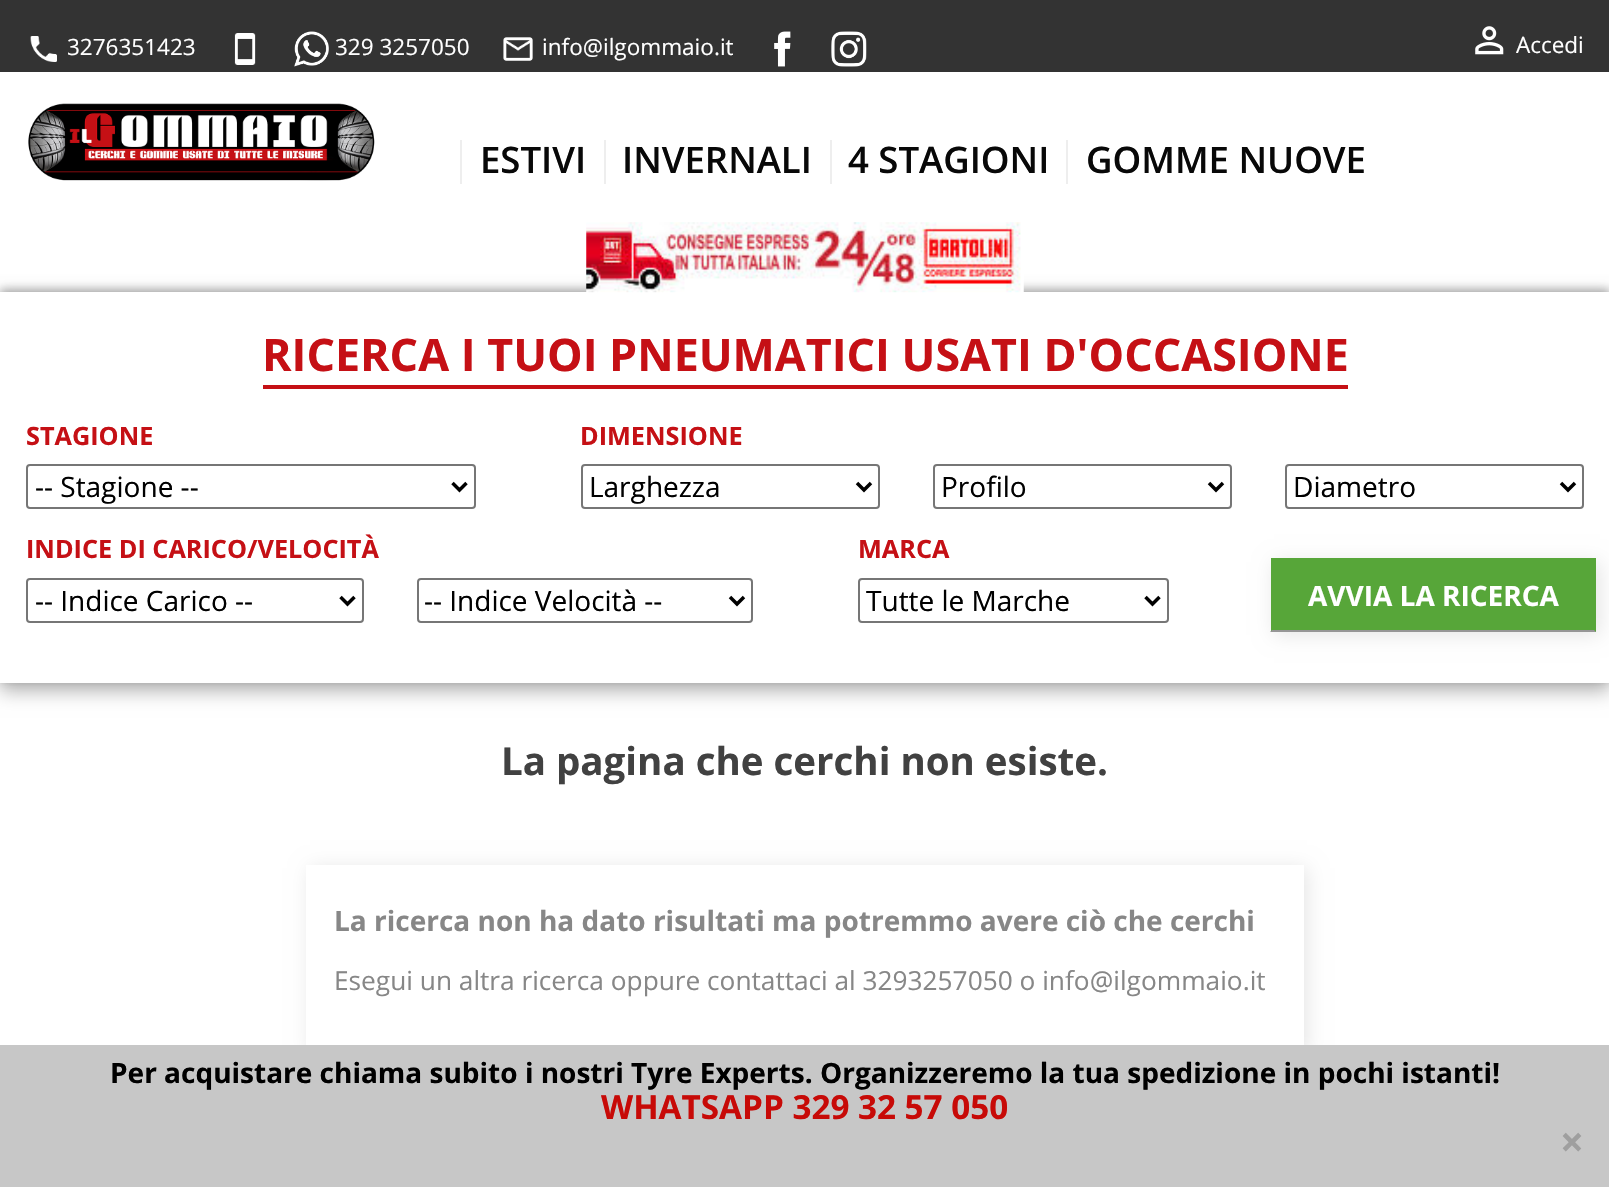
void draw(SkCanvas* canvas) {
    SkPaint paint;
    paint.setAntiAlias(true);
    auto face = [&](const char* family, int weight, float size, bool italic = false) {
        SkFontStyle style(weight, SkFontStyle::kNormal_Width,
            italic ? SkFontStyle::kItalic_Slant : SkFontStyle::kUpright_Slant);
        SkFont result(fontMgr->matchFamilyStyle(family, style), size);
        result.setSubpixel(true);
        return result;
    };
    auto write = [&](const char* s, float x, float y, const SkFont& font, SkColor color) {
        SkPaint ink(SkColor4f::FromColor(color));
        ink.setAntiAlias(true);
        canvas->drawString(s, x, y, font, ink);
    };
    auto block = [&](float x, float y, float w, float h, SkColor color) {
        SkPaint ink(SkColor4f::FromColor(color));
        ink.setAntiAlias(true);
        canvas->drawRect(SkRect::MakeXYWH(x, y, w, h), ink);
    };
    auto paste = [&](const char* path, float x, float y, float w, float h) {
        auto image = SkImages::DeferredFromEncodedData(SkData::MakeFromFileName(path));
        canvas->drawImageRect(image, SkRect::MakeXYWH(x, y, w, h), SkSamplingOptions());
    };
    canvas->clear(SK_ColorWHITE);
    block(0, 0, 1609, 72, SkColorSetRGB(51, 51, 51));
    paste("pic1.png", 30, 36, 27, 26);
    auto kFont1 = face("Open Sans", 400, 22.5f);
    write("3276351423", 67, 55, kFont1, SK_ColorWHITE);
    paste("pic2.png", 234, 33, 22, 32);
    paste("pic3.png", 294, 31, 35, 36);
    write("329 3257050", 335, 55, kFont1, SK_ColorWHITE);
    paste("pic4.png", 503, 37, 30, 24);
    write("info@ilgommaio.it", 542, 55, kFont1, SK_ColorWHITE);
    paste("pic5.png", 774, 31, 17, 36);
    paste("pic6.png", 831, 31, 36, 36);
    paste("pic7.png", 1475, 26, 29, 29);
    write("Accedi", 1516, 53, kFont1, SK_ColorWHITE);
    paste("pic8.png", 28, 103, 347, 78);
    block(460, 140, 2, 44, SkColorSetRGB(238, 238, 238));
    auto kFont2 = face("Open Sans", 600, 36.5f);
    write("ESTIVI", 480, 173, kFont2, SkColorSetRGB(8, 8, 8));
    block(604, 140, 2, 44, SkColorSetRGB(238, 238, 238));
    write("INVERNALI", 622, 173, kFont2, SkColorSetRGB(8, 8, 8));
    block(830, 140, 2, 44, SkColorSetRGB(238, 238, 238));
    write("4 STAGIONI", 848, 173, kFont2, SkColorSetRGB(8, 8, 8));
    block(1066, 140, 2, 44, SkColorSetRGB(238, 238, 238));
    write("GOMME NUOVE", 1086, 173, kFont2, SkColorSetRGB(8, 8, 8));
    paint.setColor(SkColorSetARGB(77, 0, 0, 0));
    paint.setMaskFilter(SkMaskFilter::MakeBlur(kNormal_SkBlurStyle, 9));
    canvas->drawRect(SkRect::MakeXYWH(0, 301, 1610, 390), paint);
    paint.setMaskFilter(nullptr);
    paint.setMaskFilter(SkMaskFilter::MakeBlur(kNormal_SkBlurStyle, 4.5f));
    canvas->drawRect(SkRect::MakeXYWH(0, 289, 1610, 390), paint);
    paint.setMaskFilter(nullptr);
    block(0, 292, 1609, 391, SK_ColorWHITE);
    paste("pic9.png", 586, 222, 438, 71);
    auto kFont3 = face("Open Sans", 700, 44.8f);
    write("RICERCA I TUOI PNEUMATICI USATI D'OCCASIONE", 262, 371, kFont3, SkColorSetRGB(197, 16, 21));
    block(263, 385, 1085, 4, SkColorSetRGB(197, 16, 21));
    auto kFont4 = face("Open Sans", 700, 25.25f);
    write("STAGIONE", 26, 445, kFont4, SkColorSetRGB(197, 16, 21));
    paint.setStyle(SkPaint::kStroke_Style);
    paint.setStrokeWidth(2);
    paint.setColor(SkColorSetRGB(118, 118, 118));
    canvas->drawRoundRect(SkRect::MakeXYWH(27, 465, 448, 43), 3, 3, paint);
    paint.setStrokeWidth(3.5f);
    paint.setColor(SK_ColorBLACK);
    canvas->drawPath(SkPathBuilder().moveTo(452.5f, 483).lineTo(459.5f, 490).lineTo(466.5f, 483).detach(), paint);
    auto kFont5 = face("Open Sans", 400, 28);
    write("-- Stagione --", 35, 497, kFont5, SK_ColorBLACK);
    write("DIMENSIONE", 580, 445, kFont4, SkColorSetRGB(197, 16, 21));
    paint.setStrokeWidth(2);
    paint.setColor(SkColorSetRGB(118, 118, 118));
    canvas->drawRoundRect(SkRect::MakeXYWH(582, 465, 297, 43), 3, 3, paint);
    paint.setStrokeWidth(3.5f);
    paint.setColor(SK_ColorBLACK);
    canvas->drawPath(SkPathBuilder().moveTo(857, 483).lineTo(864, 490).lineTo(871, 483).detach(), paint);
    write("Larghezza", 589, 497, kFont5, SK_ColorBLACK);
    paint.setStrokeWidth(2);
    paint.setColor(SkColorSetRGB(118, 118, 118));
    canvas->drawRoundRect(SkRect::MakeXYWH(934, 465, 297, 43), 3, 3, paint);
    paint.setStrokeWidth(3.5f);
    paint.setColor(SK_ColorBLACK);
    canvas->drawPath(SkPathBuilder().moveTo(1209, 483).lineTo(1216, 490).lineTo(1223, 483).detach(), paint);
    write("Profilo", 941, 497, kFont5, SK_ColorBLACK);
    paint.setStrokeWidth(2);
    paint.setColor(SkColorSetRGB(118, 118, 118));
    canvas->drawRoundRect(SkRect::MakeXYWH(1286, 465, 297, 43), 3, 3, paint);
    paint.setStrokeWidth(3.5f);
    paint.setColor(SK_ColorBLACK);
    canvas->drawPath(SkPathBuilder().moveTo(1561, 483).lineTo(1568, 490).lineTo(1575, 483).detach(), paint);
    write("Diametro", 1293, 497, kFont5, SK_ColorBLACK);
    write("INDICE DI CARICO/VELOCITÀ", 26, 558, kFont4, SkColorSetRGB(197, 16, 21));
    paint.setStrokeWidth(2);
    paint.setColor(SkColorSetRGB(118, 118, 118));
    canvas->drawRoundRect(SkRect::MakeXYWH(27, 579, 336, 43), 3, 3, paint);
    paint.setStrokeWidth(3.5f);
    paint.setColor(SK_ColorBLACK);
    canvas->drawPath(SkPathBuilder().moveTo(340.5f, 597).lineTo(347.5f, 604).lineTo(354.5f, 597).detach(), paint);
    write("-- Indice Carico --", 35, 611, kFont5, SK_ColorBLACK);
    paint.setStrokeWidth(2);
    paint.setColor(SkColorSetRGB(118, 118, 118));
    canvas->drawRoundRect(SkRect::MakeXYWH(418, 579, 334, 43), 3, 3, paint);
    paint.setStrokeWidth(3.5f);
    paint.setColor(SK_ColorBLACK);
    canvas->drawPath(SkPathBuilder().moveTo(730, 597).lineTo(737, 604).lineTo(744, 597).detach(), paint);
    write("-- Indice Velocità --", 424, 611, kFont5, SK_ColorBLACK);
    write("MARCA", 858, 558, kFont4, SkColorSetRGB(197, 16, 21));
    paint.setStrokeWidth(2);
    paint.setColor(SkColorSetRGB(118, 118, 118));
    canvas->drawRoundRect(SkRect::MakeXYWH(859, 579, 309, 43), 3, 3, paint);
    paint.setStrokeWidth(3.5f);
    paint.setColor(SK_ColorBLACK);
    canvas->drawPath(SkPathBuilder().moveTo(1145.5f, 597).lineTo(1152.5f, 604).lineTo(1159.5f, 597).detach(), paint);
    write("Tutte le Marche", 866, 611, kFont5, SK_ColorBLACK);
    paint.setStyle(SkPaint::kFill_Style);
    paint.setColor(SkColorSetARGB(26, 0, 0, 0));
    paint.setMaskFilter(SkMaskFilter::MakeBlur(kNormal_SkBlurStyle, 9.5f));
    canvas->drawRect(SkRect::MakeXYWH(1274, 562, 326, 73), paint);
    paint.setMaskFilter(nullptr);
    block(1271, 558, 325, 74, SkColorSetRGB(87, 166, 57));
    paint.setColor(SkColorSetRGB(150, 150, 150));
    canvas->drawPath(SkPathBuilder().moveTo(1596, 632).lineTo(1270, 632).lineTo(1272, 630).lineTo(1594, 630).close().detach(), paint);
    auto kFont6 = face("Open Sans", 700, 28);
    write("AVVIA LA RICERCA", 1308, 606, kFont6, SK_ColorWHITE);
    auto kFont7 = face("Open Sans", 700, 38.5f);
    write("La pagina che cerchi non esiste.", 501, 775, kFont7, SkColorSetRGB(65, 65, 65));
    paint.setColor(SkColorSetARGB(26, 0, 0, 0));
    paint.setMaskFilter(SkMaskFilter::MakeBlur(kNormal_SkBlurStyle, 9.5f));
    canvas->drawRect(SkRect::MakeXYWH(310, 868, 997, 186), paint);
    paint.setMaskFilter(nullptr);
    block(306, 865, 998, 180, SK_ColorWHITE);
    write("La ricerca non ha dato risultati ma potremmo avere ciò che cerchi", 334, 931, kFont6, SkColorSetRGB(135, 135, 135));
    auto kFont8 = face("Open Sans", 400, 26.25f);
    write("Esegui un altra ricerca oppure contattaci al 3293257050 o info@ilgommaio.it", 334, 990, kFont8, SkColorSetRGB(135, 135, 135));
    block(0, 1045, 1609, 142, SkColorSetRGB(199, 199, 199));
    write("Per acquistare chiama subito i nostri Tyre Experts. Organizzeremo la tua spedizione in pochi istanti!", 110, 1083, kFont6, SK_ColorBLACK);
    auto kFont9 = face("Open Sans", 700, 33.25f);
    write("WHATSAPP 329 32 57 050", 601, 1119, kFont9, SkColorSetRGB(199, 10, 7));
    auto kFont10 = face("Open Sans", 700, 42);
    write("×", 1560, 1157, kFont10, SkColorSetRGB(159, 159, 159));
}
